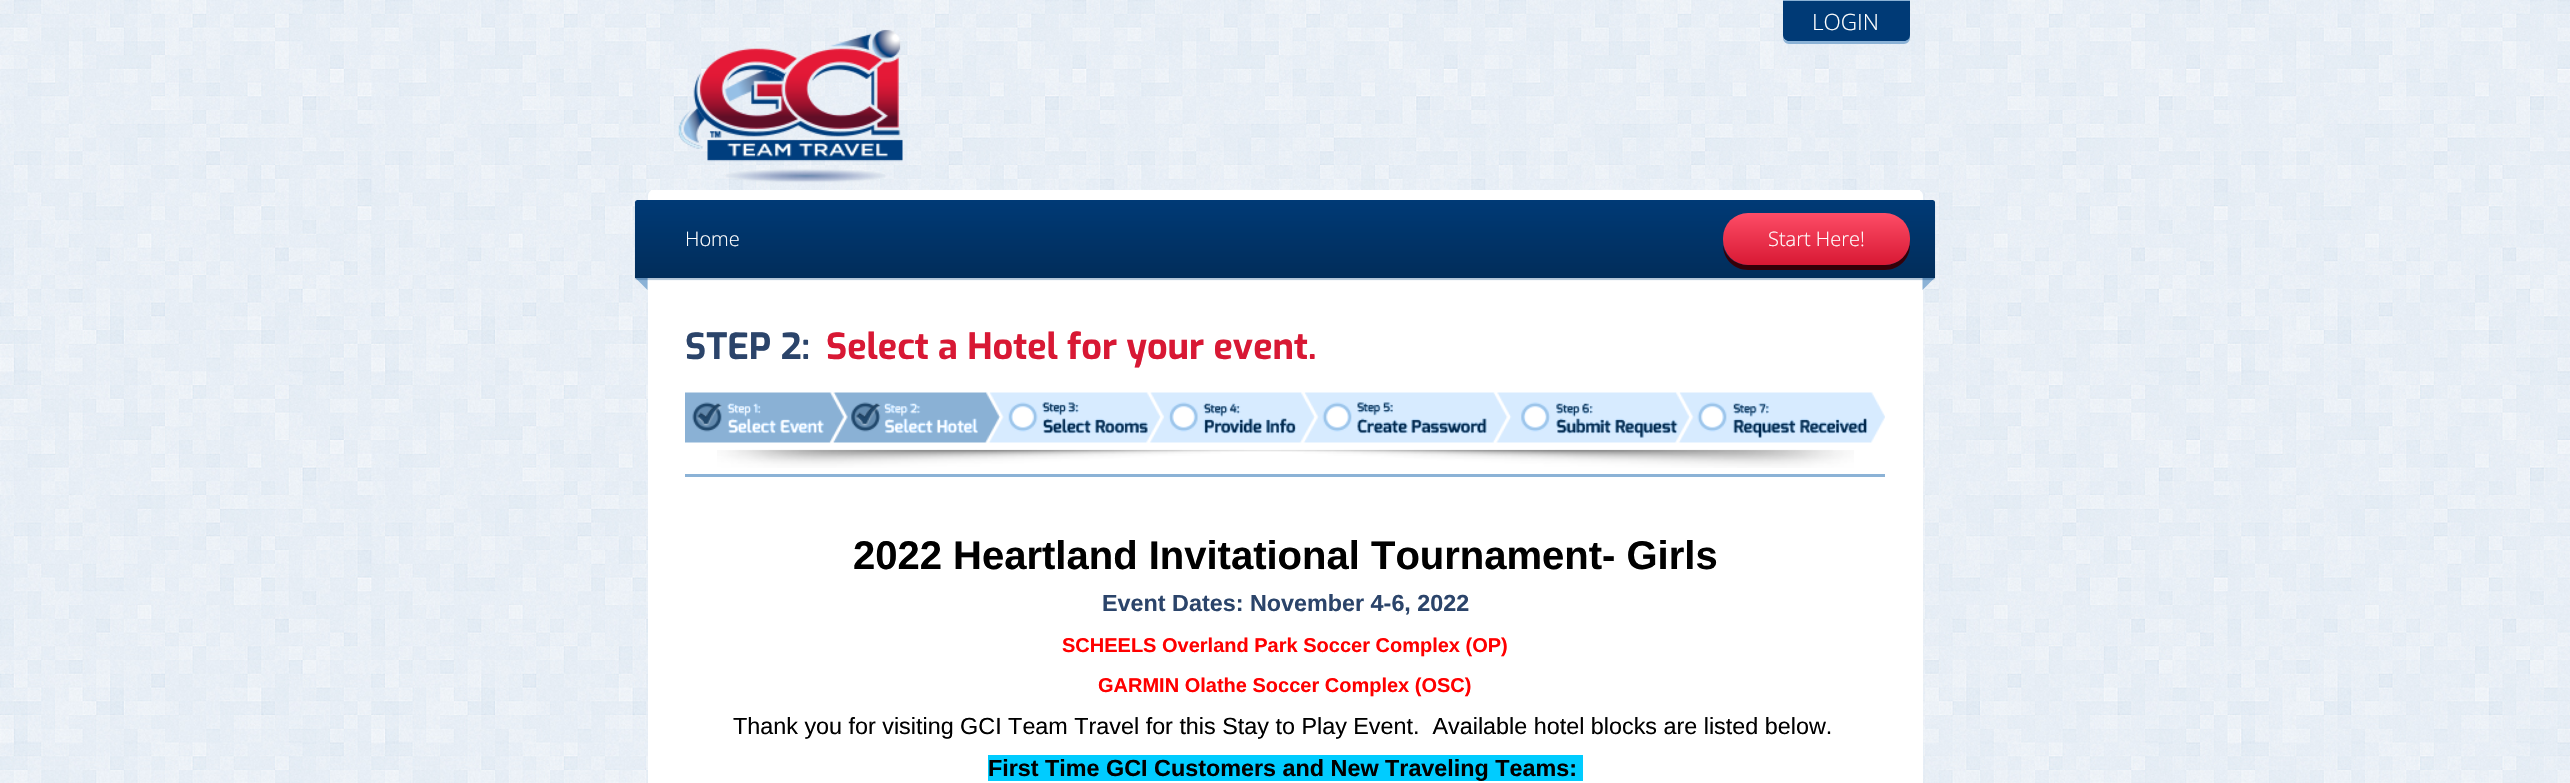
void draw(SkCanvas* canvas) {
    SkPaint paint;
    paint.setAntiAlias(true);
    auto face = [&](const char* family, int weight, float size, bool italic = false) {
        SkFontStyle style(weight, SkFontStyle::kNormal_Width,
            italic ? SkFontStyle::kItalic_Slant : SkFontStyle::kUpright_Slant);
        SkFont result(fontMgr->matchFamilyStyle(family, style), size);
        result.setSubpixel(true);
        return result;
    };
    auto write = [&](const char* s, float x, float y, const SkFont& font, SkColor color) {
        SkPaint ink(SkColor4f::FromColor(color));
        ink.setAntiAlias(true);
        canvas->drawString(s, x, y, font, ink);
    };
    auto block = [&](float x, float y, float w, float h, SkColor color) {
        SkPaint ink(SkColor4f::FromColor(color));
        ink.setAntiAlias(true);
        canvas->drawRect(SkRect::MakeXYWH(x, y, w, h), ink);
    };
    auto paste = [&](const char* path, float x, float y, float w, float h) {
        auto image = SkImages::DeferredFromEncodedData(SkData::MakeFromFileName(path));
        canvas->drawImageRect(image, SkRect::MakeXYWH(x, y, w, h), SkSamplingOptions());
    };
    canvas->clear(SK_ColorWHITE);
    paste("pic1.png", 0, 0, 2570, 783);
    paint.setColor(SkColorSetRGB(139, 178, 214));
    canvas->drawPath(SkPathBuilder().moveTo(1783, 37).lineTo(1783, 38).cubicTo(1783, 41, 1786, 44, 1789, 44).lineTo(1904, 44).cubicTo(1907, 44, 1910, 41, 1910, 38).lineTo(1910, 35).cubicTo(1910, 38, 1907, 41, 1904, 41).lineTo(1789, 41).cubicTo(1786, 41, 1784, 40, 1783, 37).close().detach(), paint);
    paint.setColor(SkColorSetRGB(0, 58, 118));
    canvas->drawPath(SkPathBuilder().moveTo(1783, 0).lineTo(1910, 0).lineTo(1910, 35).cubicTo(1910, 38.5f, 1907.5f, 41, 1904, 41).lineTo(1789, 41).cubicTo(1785.5f, 41, 1783, 38.5f, 1783, 35).close().detach(), paint);
    block(1783, 0, 127, 1, SkColorSetRGB(139, 178, 214));
    auto kFont1 = face("Open Sans", 300, 22.5f);
    write("LOGIN", 1812, 30, kFont1, SK_ColorWHITE);
    paste("pic2.png", 678, 29, 225, 154);
    paint.setColor(SkColorSetRGB(139, 178, 214));
    canvas->drawPath(SkPathBuilder().moveTo(635, 277.5f).lineTo(647.5f, 277.5f).lineTo(647.5f, 290).close().detach(), paint);
    paint.setColor(SK_ColorWHITE);
    canvas->drawPath(SkPathBuilder().moveTo(654, 190).lineTo(1917, 190).cubicTo(1920.5f, 190, 1923, 192.5f, 1923, 196).lineTo(1923, 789).lineTo(648, 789).lineTo(648, 196).cubicTo(648, 192.5f, 650.5f, 190, 654, 190).close().detach(), paint);
    paint.setColor(SkColorSetRGB(139, 178, 214));
    canvas->drawPath(SkPathBuilder().moveTo(1922.5f, 277.5f).lineTo(1935, 277.5f).lineTo(1922.5f, 290).close().detach(), paint);
    paint.setColor(SkColorSetARGB(77, 0, 58, 118));
    paint.setMaskFilter(SkMaskFilter::MakeBlur(kNormal_SkBlurStyle, 0.5f));
    canvas->drawRoundRect(SkRect::MakeXYWH(635, 203, 1300, 77), 2.5f, 2.5f, paint);
    paint.setMaskFilter(nullptr);
    {
        const SkColor colors[] = {SkColorSetRGB(0, 58, 118), SkColorSetRGB(1, 45, 90)};
        const float stops[] = {0, 1};
        const SkPoint ends[] = {{1285, 200}, {1285, 278}};
        paint.setShader(SkGradientShader::MakeLinear(ends, colors, stops, 2, SkTileMode::kClamp));
        paint.setAlpha(255);
    }
    canvas->drawPath(SkPathBuilder().moveTo(637.5f, 200).lineTo(1932.5f, 200).cubicTo(1934, 200, 1935, 201, 1935, 202.5f).lineTo(1935, 278).lineTo(635, 278).lineTo(635, 202.5f).cubicTo(635, 201, 636, 200, 637.5f, 200).close().detach(), paint);
    auto kFont2 = face("Open Sans", 300, 20);
    write("Home", 685, 246, kFont2, SK_ColorWHITE);
    paint.setShader(nullptr);
    paint.setColor(SkColorSetRGB(53, 0, 8));
    canvas->drawPath(SkPathBuilder().moveTo(1723, 245).cubicTo(1723, 259, 1734, 270, 1748, 270).lineTo(1885, 270).cubicTo(1899, 270, 1910, 259, 1910, 245).lineTo(1910, 241).cubicTo(1909, 255, 1898, 265, 1885, 265).lineTo(1748, 265).cubicTo(1735, 265, 1725, 256, 1723, 245).close().detach(), paint);
    {
        const SkColor colors[] = {SkColorSetRGB(253, 76, 102), SkColorSetRGB(216, 24, 52)};
        const float stops[] = {0, 1};
        const SkPoint ends[] = {{1816, 213}, {1816, 265}};
        paint.setShader(SkGradientShader::MakeLinear(ends, colors, stops, 2, SkTileMode::kClamp));
        paint.setAlpha(255);
    }
    canvas->drawRoundRect(SkRect::MakeXYWH(1723, 213, 187, 52), 25, 25, paint);
    write("Start Here!", 1768, 246, kFont2, SK_ColorWHITE);
    block(651, 190, 1269, 1, SK_ColorWHITE);
    block(685, 474, 1200, 3, SkColorSetRGB(139, 178, 214));
    auto kFont3 = face("Exo", 700, 36);
    write("STEP 2:", 685, 359, kFont3, SkColorSetRGB(43, 68, 106));
    write("Select a Hotel for your event.", 826, 359, kFont3, SkColorSetRGB(216, 24, 52));
    paste("pic3.png", 685, 392, 1200, 51);
    paste("pic4.png", 717, 449, 1137, 19);
    auto kFont4 = face("Liberation Sans", 700, 40);
    write("2022 Heartland Invitational Tournament- Girls", 853, 569, kFont4, SK_ColorBLACK);
    auto kFont5 = face("Liberation Sans", 700, 23.35f);
    write("Event Dates: November 4-6, 2022", 1102, 611, kFont5, SkColorSetRGB(43, 68, 106));
    auto kFont6 = face("Liberation Sans", 700, 20);
    write("SCHEELS Overland Park Soccer Complex (OP)", 1062, 652, kFont6, SkColorSetRGB(255, 0, 0));
    write("GARMIN Olathe Soccer Complex (OSC)", 1098, 692, kFont6, SkColorSetRGB(255, 0, 0));
    auto kFont7 = face("Liberation Sans", 400, 23.35f);
    write("Thank you for visiting GCI Team Travel for this Stay to Play Event.  Available hotel blocks are listed below.", 733, 734, kFont7, SK_ColorBLACK);
    block(988, 755, 595, 26, SkColorSetRGB(0, 204, 255));
    write("First Time GCI Customers and New Traveling Teams:", 988, 776, kFont5, SK_ColorBLACK);
}
